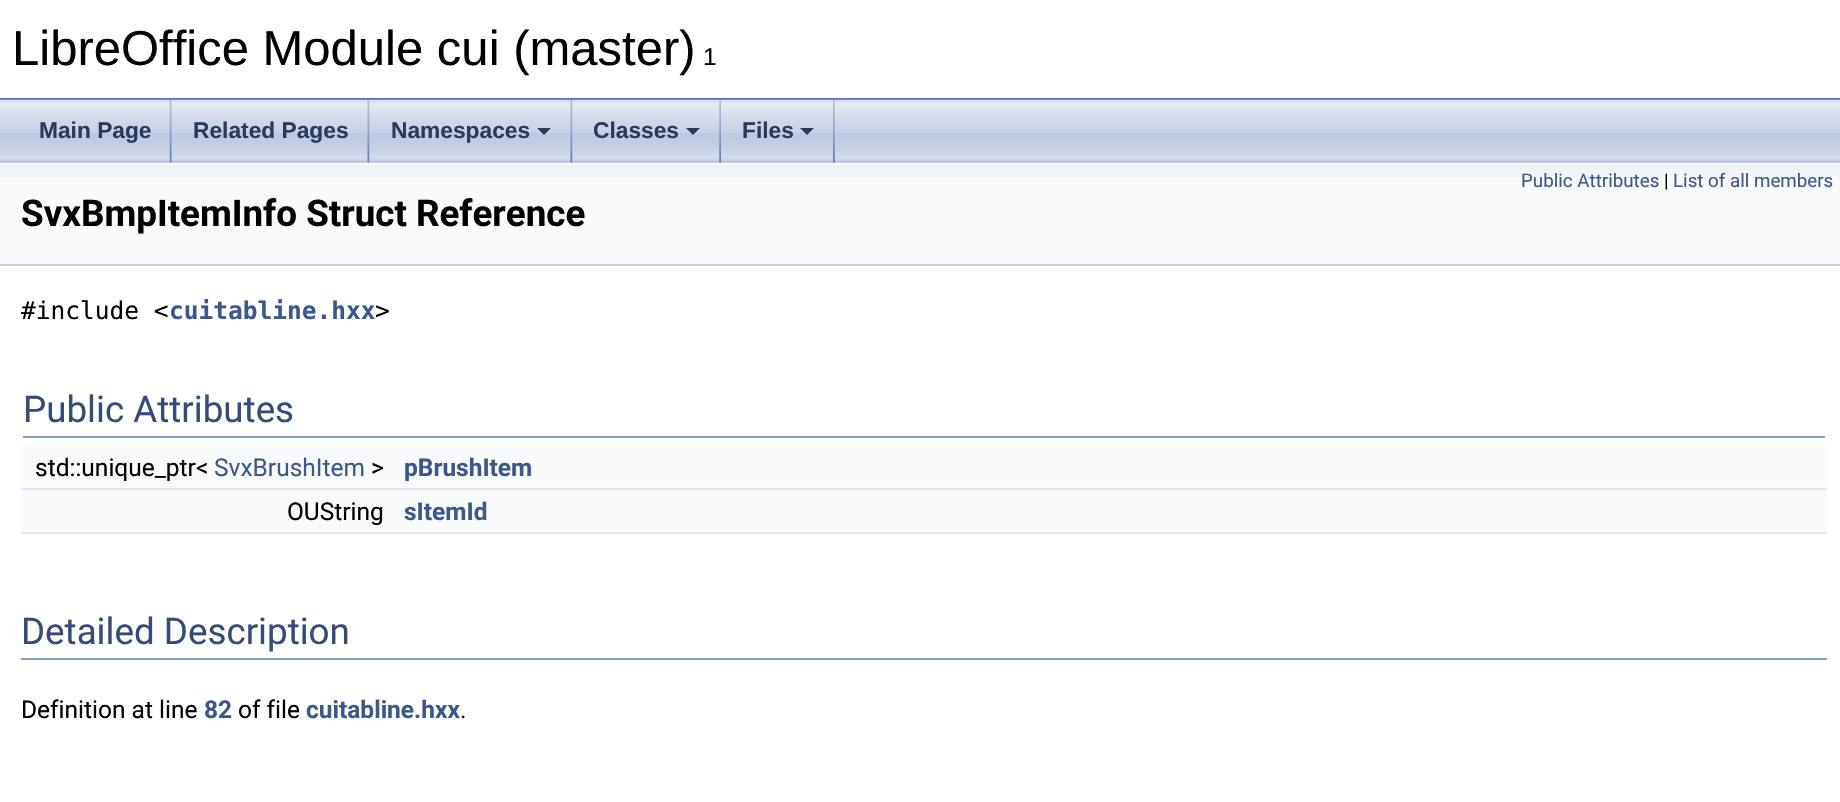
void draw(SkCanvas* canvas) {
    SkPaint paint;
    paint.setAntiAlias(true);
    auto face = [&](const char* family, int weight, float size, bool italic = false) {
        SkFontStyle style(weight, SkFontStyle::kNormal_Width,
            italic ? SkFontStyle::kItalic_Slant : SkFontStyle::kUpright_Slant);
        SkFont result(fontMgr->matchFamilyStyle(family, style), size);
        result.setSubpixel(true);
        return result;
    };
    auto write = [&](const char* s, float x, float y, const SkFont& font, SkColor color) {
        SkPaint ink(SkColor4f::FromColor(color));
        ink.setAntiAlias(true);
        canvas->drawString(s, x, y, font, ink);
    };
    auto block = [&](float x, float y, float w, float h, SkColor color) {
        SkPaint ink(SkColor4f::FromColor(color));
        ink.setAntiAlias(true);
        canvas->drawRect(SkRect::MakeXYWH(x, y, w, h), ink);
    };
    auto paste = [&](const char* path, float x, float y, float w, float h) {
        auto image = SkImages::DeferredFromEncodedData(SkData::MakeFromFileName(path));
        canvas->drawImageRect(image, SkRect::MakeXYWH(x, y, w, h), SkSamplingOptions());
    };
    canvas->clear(SK_ColorWHITE);
    block(0, 98, 1840, 2, SkColorSetRGB(83, 115, 180));
    auto kFont1 = face("Liberation Sans", 400, 49);
    write("LibreOffice Module cui (master)", 12, 65, kFont1, SK_ColorBLACK);
    auto kFont2 = face("Liberation Sans", 400, 24.5f);
    write("1", 703, 65, kFont2, SK_ColorBLACK);
    paste("pic1.png", 0, 99, 1840, 64);
    paste("pic2.png", 169, 99, 3, 64);
    auto kFont3 = face("Liberation Sans", 700, 22.75f);
    write("Main Page", 39, 138, kFont3, SkColorSetRGB(40, 58, 93));
    paste("pic3.png", 367, 99, 3, 64);
    write("Related Pages", 193, 138, kFont3, SkColorSetRGB(40, 58, 93));
    paste("pic3.png", 570, 99, 3, 64);
    write("Namespaces", 391, 138, kFont3, SkColorSetRGB(40, 58, 93));
    paint.setColor(SkColorSetRGB(40, 58, 93));
    canvas->drawPath(SkPathBuilder().moveTo(537, 128).lineTo(551, 128).lineTo(544, 135).close().detach(), paint);
    paste("pic4.png", 719, 99, 2, 64);
    write("Classes", 593, 138, kFont3, SkColorSetRGB(40, 58, 93));
    canvas->drawPath(SkPathBuilder().moveTo(686, 128).lineTo(700, 128).lineTo(693, 135).close().detach(), paint);
    paste("pic5.png", 833, 99, 2, 64);
    write("Files", 742, 138, kFont3, SkColorSetRGB(40, 58, 93));
    canvas->drawPath(SkPathBuilder().moveTo(800, 128).lineTo(814, 128).lineTo(807, 135).close().detach(), paint);
    block(0, 177, 1840, 87, SkColorSetRGB(249, 250, 252));
    paste("pic6.png", 0, 163, 1840, 14);
    block(0, 264, 1840, 2, SkColorSetRGB(196, 207, 229));
    auto kFont4 = face("Roboto", 400, 18.75f);
    write("Public Attributes", 1521, 187, kFont4, SkColorSetRGB(61, 87, 140));
    write("|", 1664, 187, kFont4, SK_ColorBLACK);
    write("List of all members", 1673, 187, kFont4, SkColorSetRGB(61, 87, 140));
    auto kFont5 = face("Roboto", 700, 36.75f);
    write("SvxBmpItemInfo Struct Reference", 21, 226, kFont5, SK_ColorBLACK);
    auto kFont6 = face("DejaVu Sans Mono", 400, 24.5f);
    write("#include <", 21, 319, kFont6, SK_ColorBLACK);
    auto kFont7 = face("DejaVu Sans Mono", 700, 24.5f);
    write("cuitabline.hxx", 169, 319, kFont7, SkColorSetRGB(61, 87, 140));
    write(">", 375, 319, kFont6, SK_ColorBLACK);
    block(23, 436, 1802, 2, SkColorSetRGB(135, 158, 203));
    auto kFont8 = face("Roboto", 400, 36.75f);
    write("Public Attributes", 23, 422, kFont8, SkColorSetRGB(53, 76, 123));
    block(21, 446, 1806, 41, SkColorSetRGB(249, 250, 252));
    auto kFont9 = face("Roboto", 400, 24.5f);
    write("std::unique_ptr<", 35, 476, kFont9, SK_ColorBLACK);
    write("SvxBrushItem", 214, 476, kFont9, SkColorSetRGB(61, 87, 140));
    write(">", 371, 476, kFont9, SK_ColorBLACK);
    auto kFont10 = face("Roboto", 700, 24.5f);
    write("pBrushItem", 404, 476, kFont10, SkColorSetRGB(61, 87, 140));
    block(21, 488, 1806, 2, SkColorSetRGB(222, 228, 240));
    block(21, 490, 1806, 40, SkColorSetRGB(249, 250, 252));
    write("OUString", 287, 520, kFont9, SK_ColorBLACK);
    write("sItemId", 404, 520, kFont10, SkColorSetRGB(61, 87, 140));
    block(21, 532, 1806, 2, SkColorSetRGB(222, 228, 240));
    block(21, 658, 1806, 2, SkColorSetRGB(135, 158, 203));
    write("Detailed Description", 21, 644, kFont8, SkColorSetRGB(53, 76, 123));
    write("Definition at line", 21, 718, kFont9, SK_ColorBLACK);
    write("82", 204, 718, kFont10, SkColorSetRGB(61, 87, 140));
    write("of file", 238, 718, kFont9, SK_ColorBLACK);
    write("cuitabline.hxx", 306, 718, kFont10, SkColorSetRGB(61, 87, 140));
    write(".", 460, 718, kFont9, SK_ColorBLACK);
}
